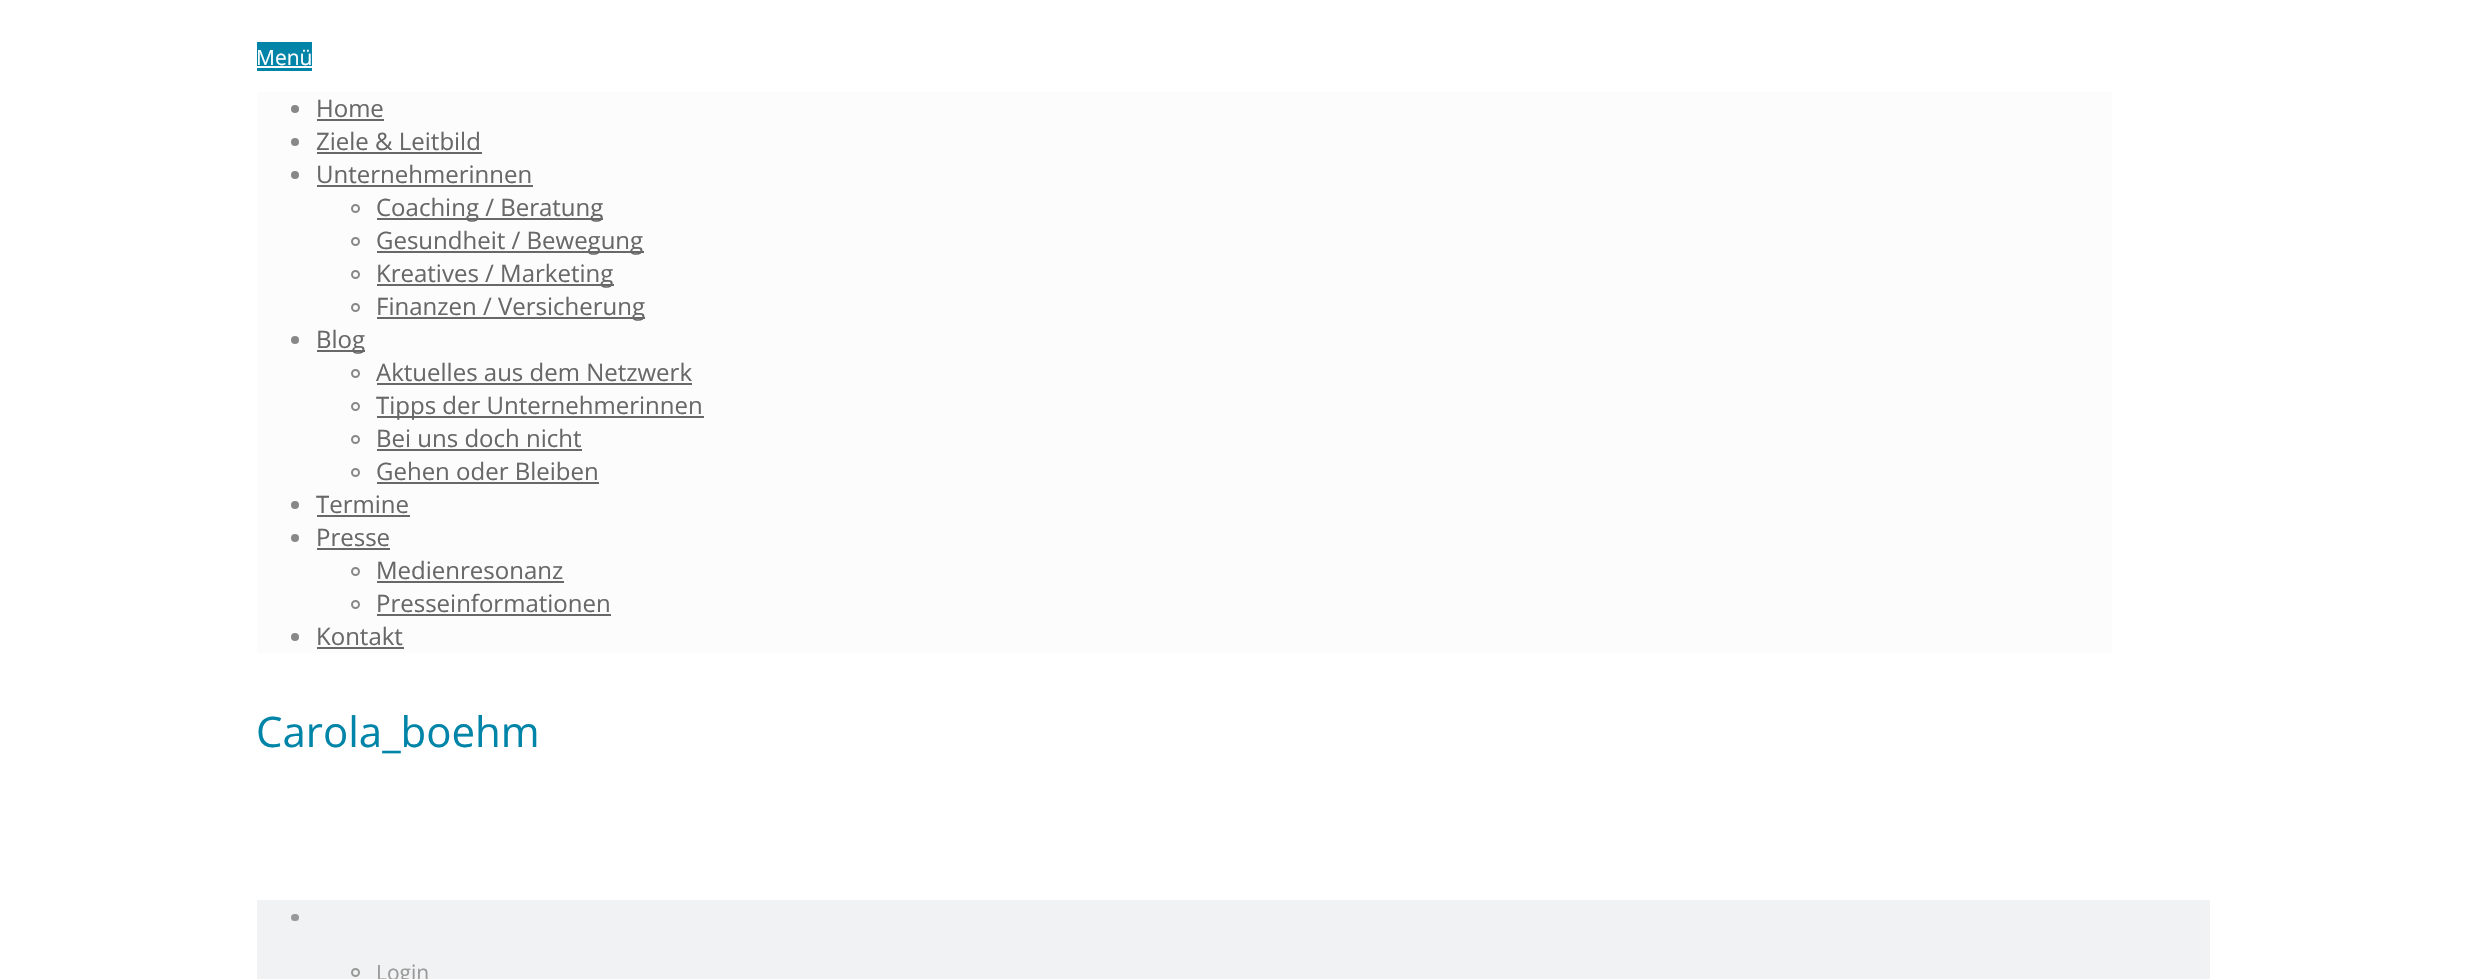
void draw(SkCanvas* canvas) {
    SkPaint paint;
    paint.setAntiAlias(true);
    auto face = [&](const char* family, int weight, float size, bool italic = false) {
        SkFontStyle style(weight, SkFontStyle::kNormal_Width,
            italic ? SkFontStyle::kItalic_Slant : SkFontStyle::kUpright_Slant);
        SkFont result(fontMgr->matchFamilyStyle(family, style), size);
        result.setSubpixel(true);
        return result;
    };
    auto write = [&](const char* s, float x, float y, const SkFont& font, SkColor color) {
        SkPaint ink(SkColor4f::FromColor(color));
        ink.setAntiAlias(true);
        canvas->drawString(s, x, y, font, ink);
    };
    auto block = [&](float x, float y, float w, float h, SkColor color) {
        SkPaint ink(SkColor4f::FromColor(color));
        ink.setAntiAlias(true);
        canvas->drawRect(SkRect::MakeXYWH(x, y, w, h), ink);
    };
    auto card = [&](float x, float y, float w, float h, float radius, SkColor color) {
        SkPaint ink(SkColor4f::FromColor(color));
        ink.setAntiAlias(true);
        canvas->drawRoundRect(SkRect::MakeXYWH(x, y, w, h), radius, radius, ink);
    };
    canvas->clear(SK_ColorWHITE);
    block(257, 42, 55, 29, SkColorSetRGB(0, 132, 168));
    auto kFont1 = face("Open Sans", 400, 21);
    write("Menü", 256, 65, kFont1, SK_ColorWHITE);
    block(257, 66, 55, 2, SK_ColorWHITE);
    block(257, 92, 1855, 561, SkColorSetRGB(252, 252, 252));
    paint.setColor(SkColorSetRGB(136, 136, 136));
    canvas->drawCircle(295, 109, 4, paint);
    auto kFont2 = face("Open Sans", 400, 24);
    write("Home", 316, 117, kFont2, SkColorSetRGB(104, 104, 104));
    block(317, 119, 67, 2, SkColorSetRGB(104, 104, 104));
    canvas->drawCircle(295, 142, 4, paint);
    write("Ziele & Leitbild", 316, 150, kFont2, SkColorSetRGB(104, 104, 104));
    block(317, 152, 165, 2, SkColorSetRGB(104, 104, 104));
    canvas->drawCircle(295, 175, 4, paint);
    write("Unternehmerinnen", 316, 183, kFont2, SkColorSetRGB(104, 104, 104));
    block(317, 185, 216, 2, SkColorSetRGB(104, 104, 104));
    paint.setStyle(SkPaint::kStroke_Style);
    paint.setStrokeWidth(2);
    canvas->drawCircle(355.5f, 208.5f, 3.5f, paint);
    block(377, 218, 226, 2, SkColorSetRGB(104, 104, 104));
    write("Coaching / Beratung", 376, 216, kFont2, SkColorSetRGB(104, 104, 104));
    canvas->drawCircle(355.5f, 241.5f, 3.5f, paint);
    block(377, 251, 267, 2, SkColorSetRGB(104, 104, 104));
    write("Gesundheit / Bewegung", 376, 249, kFont2, SkColorSetRGB(104, 104, 104));
    canvas->drawCircle(355.5f, 274.5f, 3.5f, paint);
    block(377, 284, 237, 2, SkColorSetRGB(104, 104, 104));
    write("Kreatives / Marketing", 376, 282, kFont2, SkColorSetRGB(104, 104, 104));
    canvas->drawCircle(355.5f, 307.5f, 3.5f, paint);
    block(377, 317, 268, 2, SkColorSetRGB(104, 104, 104));
    write("Finanzen / Versicherung", 376, 315, kFont2, SkColorSetRGB(104, 104, 104));
    paint.setStyle(SkPaint::kFill_Style);
    canvas->drawCircle(295, 340, 4, paint);
    block(317, 350, 48, 2, SkColorSetRGB(104, 104, 104));
    write("Blog", 316, 348, kFont2, SkColorSetRGB(104, 104, 104));
    paint.setStyle(SkPaint::kStroke_Style);
    canvas->drawCircle(355.5f, 373.5f, 3.5f, paint);
    write("Aktuelles aus dem Netzwerk", 376, 381, kFont2, SkColorSetRGB(104, 104, 104));
    block(377, 383, 315, 2, SkColorSetRGB(104, 104, 104));
    canvas->drawCircle(355.5f, 406.5f, 3.5f, paint);
    block(377, 416, 327, 2, SkColorSetRGB(104, 104, 104));
    write("Tipps der Unternehmerinnen", 376, 414, kFont2, SkColorSetRGB(104, 104, 104));
    canvas->drawCircle(355.5f, 439.5f, 3.5f, paint);
    write("Bei uns doch nicht", 376, 447, kFont2, SkColorSetRGB(104, 104, 104));
    block(377, 449, 205, 2, SkColorSetRGB(104, 104, 104));
    canvas->drawCircle(355.5f, 472.5f, 3.5f, paint);
    write("Gehen oder Bleiben", 376, 480, kFont2, SkColorSetRGB(104, 104, 104));
    block(377, 482, 222, 2, SkColorSetRGB(104, 104, 104));
    paint.setStyle(SkPaint::kFill_Style);
    canvas->drawCircle(295, 505, 4, paint);
    write("Termine", 316, 513, kFont2, SkColorSetRGB(104, 104, 104));
    block(317, 515, 93, 2, SkColorSetRGB(104, 104, 104));
    canvas->drawCircle(295, 538, 4, paint);
    write("Presse", 316, 546, kFont2, SkColorSetRGB(104, 104, 104));
    block(317, 548, 73, 2, SkColorSetRGB(104, 104, 104));
    paint.setStyle(SkPaint::kStroke_Style);
    canvas->drawCircle(355.5f, 571.5f, 3.5f, paint);
    write("Medienresonanz", 376, 579, kFont2, SkColorSetRGB(104, 104, 104));
    block(377, 581, 187, 2, SkColorSetRGB(104, 104, 104));
    canvas->drawCircle(355.5f, 604.5f, 3.5f, paint);
    write("Presseinformationen", 376, 612, kFont2, SkColorSetRGB(104, 104, 104));
    block(377, 614, 234, 2, SkColorSetRGB(104, 104, 104));
    paint.setStyle(SkPaint::kFill_Style);
    canvas->drawCircle(295, 637, 4, paint);
    write("Kontakt", 316, 645, kFont2, SkColorSetRGB(104, 104, 104));
    block(317, 647, 87, 2, SkColorSetRGB(104, 104, 104));
    auto kFont3 = face("Open Sans", 400, 42);
    write("Carola_boehm", 256, 747, kFont3, SkColorSetRGB(0, 132, 168));
    block(257, 900, 1953, 79, SkColorSetRGB(241, 242, 243));
    card(291, 914, 8, 7, 3.5f, SkColorSetRGB(153, 153, 153));
    paint.setStyle(SkPaint::kStroke_Style);
    paint.setColor(SkColorSetRGB(153, 153, 153));
    canvas->drawCircle(355.5f, 972.5f, 3.5f, paint);
    write("Login", 376, 980, kFont1, SkColorSetRGB(153, 153, 153));
}
